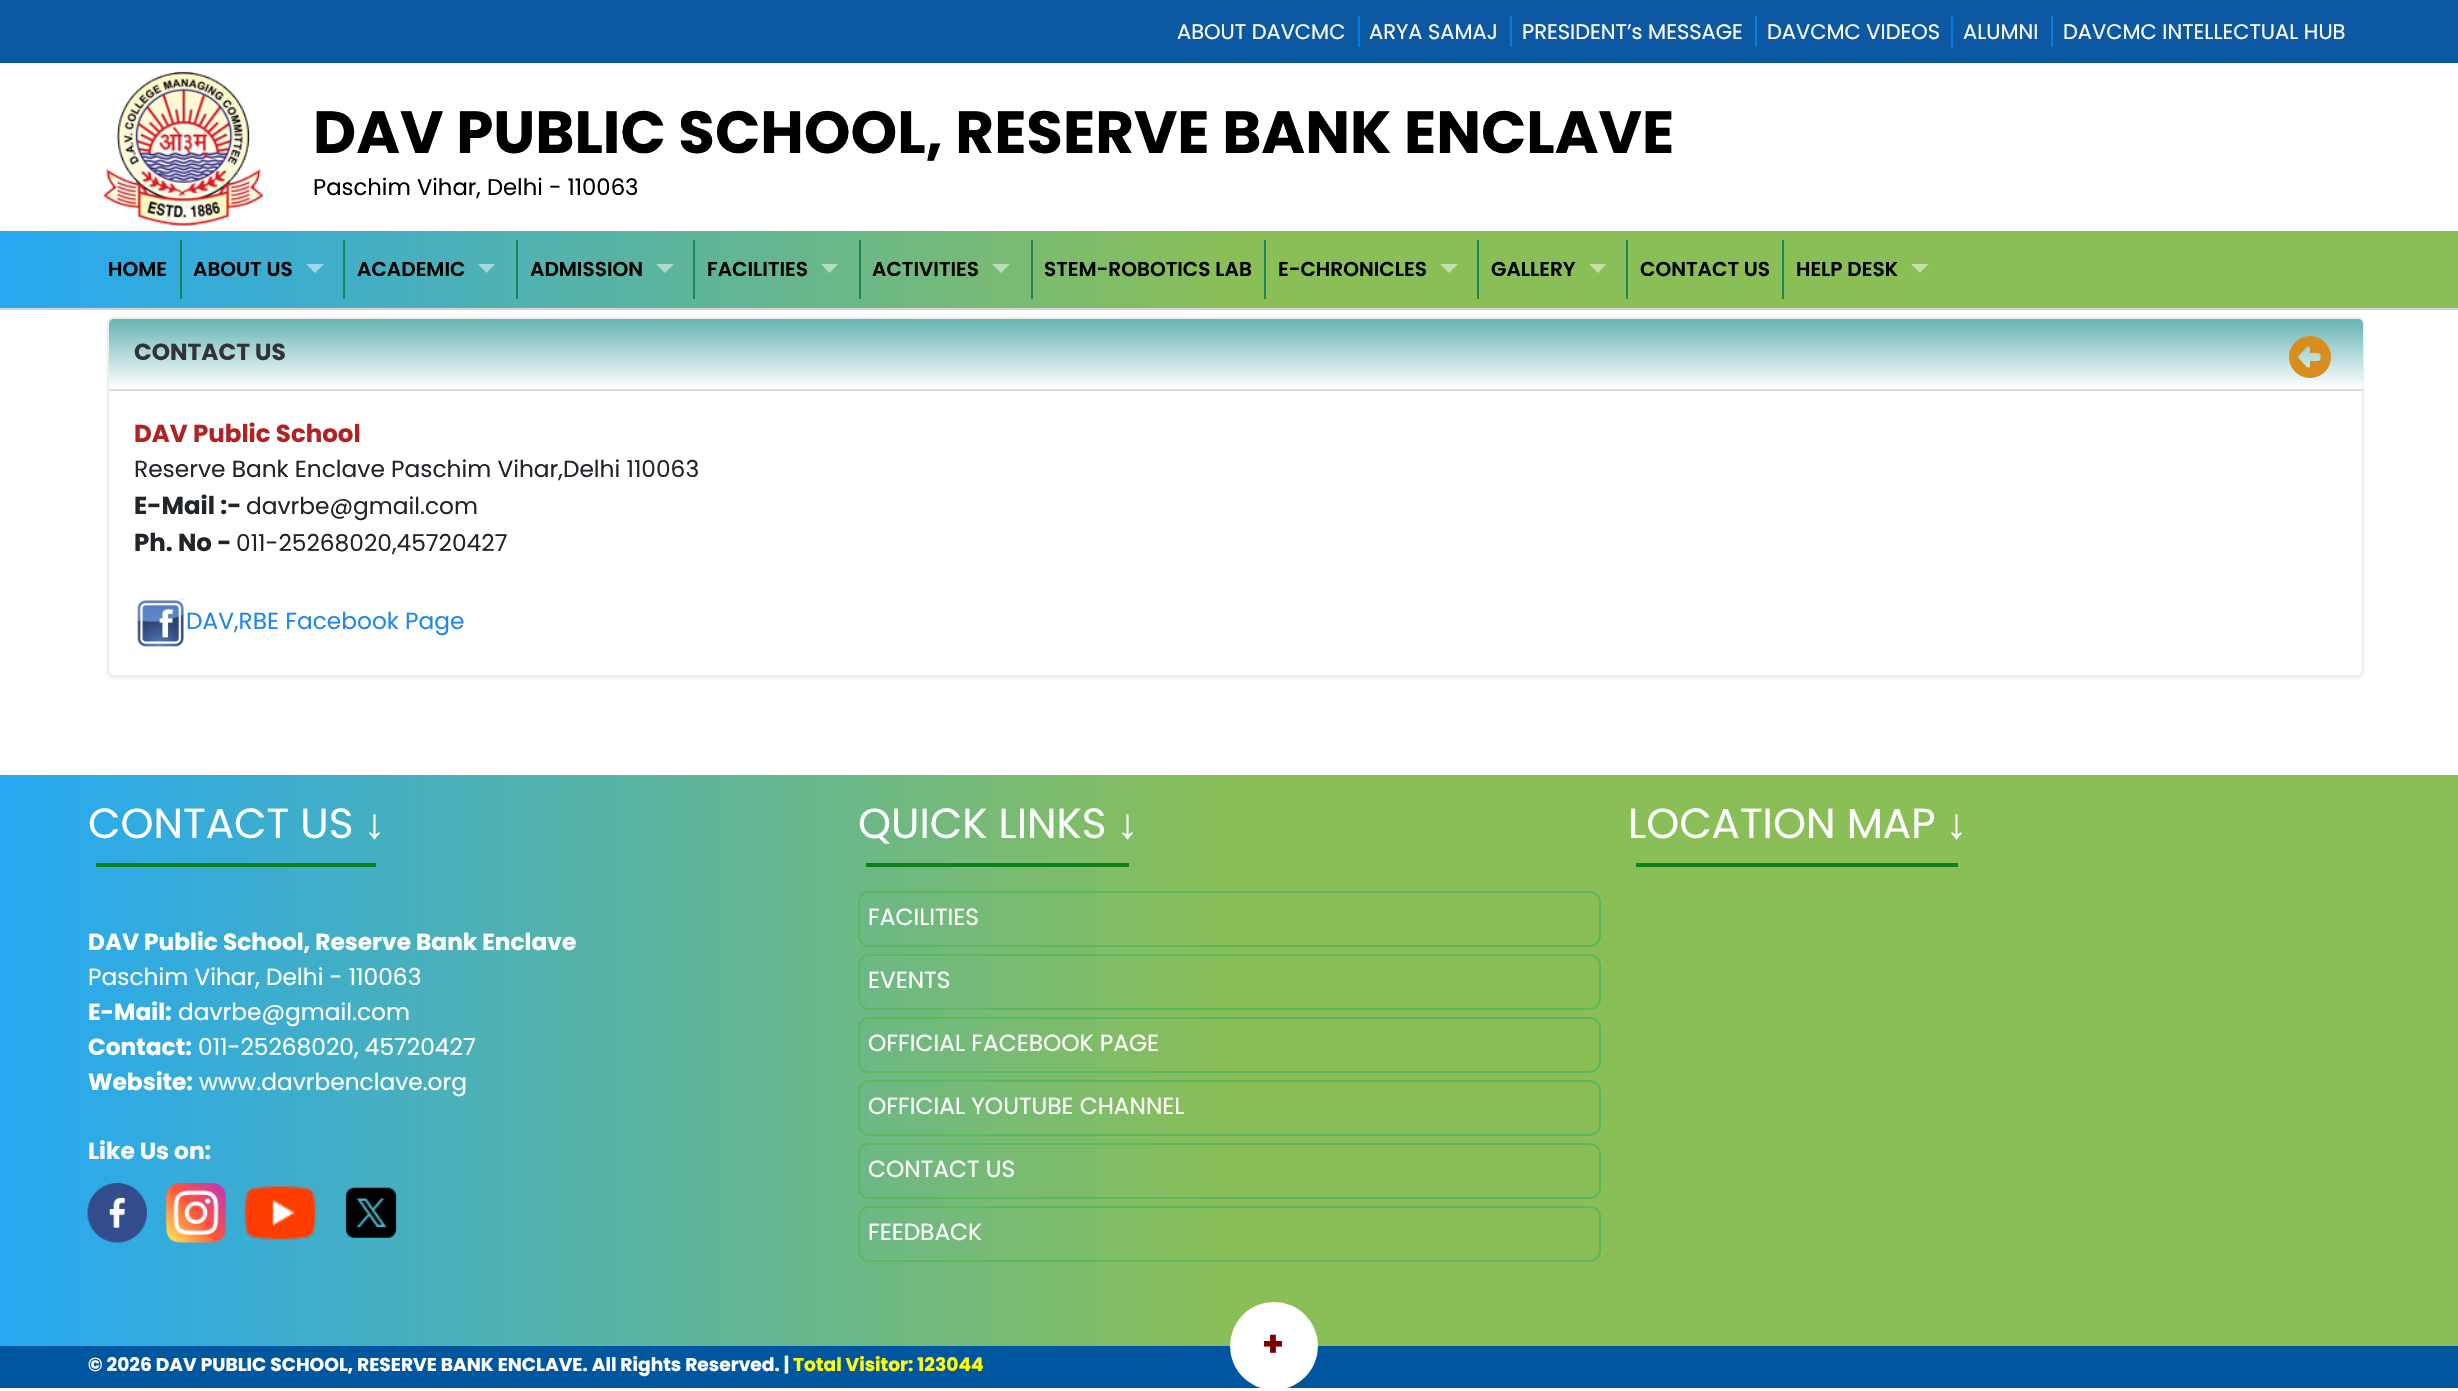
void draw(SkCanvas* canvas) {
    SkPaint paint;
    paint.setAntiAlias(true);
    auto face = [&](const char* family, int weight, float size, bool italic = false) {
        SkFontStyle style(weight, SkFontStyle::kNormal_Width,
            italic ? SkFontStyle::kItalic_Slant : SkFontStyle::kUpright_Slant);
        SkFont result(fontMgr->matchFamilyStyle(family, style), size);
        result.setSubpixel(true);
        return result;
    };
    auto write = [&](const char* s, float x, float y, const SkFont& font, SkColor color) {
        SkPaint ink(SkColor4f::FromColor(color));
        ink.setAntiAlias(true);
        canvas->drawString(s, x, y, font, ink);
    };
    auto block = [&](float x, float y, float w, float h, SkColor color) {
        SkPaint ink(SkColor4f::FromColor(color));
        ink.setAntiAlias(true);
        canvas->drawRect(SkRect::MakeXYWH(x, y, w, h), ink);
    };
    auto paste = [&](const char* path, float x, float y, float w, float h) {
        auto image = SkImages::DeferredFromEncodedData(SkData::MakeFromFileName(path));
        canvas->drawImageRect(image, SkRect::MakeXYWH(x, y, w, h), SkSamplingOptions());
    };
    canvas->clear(SK_ColorWHITE);
    block(0, 0, 2458, 63, SkColorSetRGB(12, 88, 162));
    block(1358, 16, 2, 31, SkColorSetRGB(8, 122, 225));
    auto kFont1 = face("Poppins", 400, 21);
    write("ABOUT DAVCMC", 1177, 39, kFont1, SK_ColorWHITE);
    block(1510, 16, 2, 31, SkColorSetRGB(8, 122, 225));
    write("ARYA SAMAJ", 1369, 39, kFont1, SK_ColorWHITE);
    block(1755, 16, 2, 31, SkColorSetRGB(8, 122, 225));
    write("PRESIDENT’s MESSAGE", 1522, 39, kFont1, SK_ColorWHITE);
    block(1951, 16, 2, 31, SkColorSetRGB(8, 122, 225));
    write("DAVCMC VIDEOS", 1767, 39, kFont1, SK_ColorWHITE);
    block(2051, 16, 2, 31, SkColorSetRGB(8, 122, 225));
    write("ALUMNI", 1963, 39, kFont1, SK_ColorWHITE);
    write("DAVCMC INTELLECTUAL HUB", 2063, 39, kFont1, SK_ColorWHITE);
    paste("pic1.png", 102, 71, 163, 155);
    auto kFont2 = face("Poppins", 700, 59.5f);
    write("DAV PUBLIC SCHOOL, RESERVE BANK ENCLAVE", 313, 153, kFont2, SK_ColorBLACK);
    auto kFont3 = face("Poppins", 400, 22.75f);
    write("Paschim Vihar, Delhi - 110063", 313, 195, kFont3, SK_ColorBLACK);
    {
        const SkColor colors[] = {SkColorSetRGB(38, 168, 242), SkColorSetRGB(138, 191, 87)};
        const float stops[] = {0, 0.5f};
        const SkPoint ends[] = {{0, 270}, {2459, 269}};
        paint.setShader(SkGradientShader::MakeLinear(ends, colors, stops, 2, SkTileMode::kClamp));
        paint.setAlpha(255);
    }
    canvas->drawRect(SkRect::MakeXYWH(0, 231, 2458, 77), paint);
    block(0, 308, 2458, 2, SkColorSetRGB(211, 211, 212));
    block(180, 240, 2, 59, SkColorSetRGB(25, 135, 84));
    auto kFont4 = face("Poppins", 600, 20.1f);
    write("HOME", 108, 276, kFont4, SK_ColorBLACK);
    block(343, 240, 2, 59, SkColorSetRGB(25, 135, 84));
    write("ABOUT US", 193, 276, kFont4, SK_ColorBLACK);
    paint.setShader(nullptr);
    paint.setColor(SkColorSetRGB(159, 215, 229));
    canvas->drawPath(SkPathBuilder().moveTo(306, 264).lineTo(324, 264).lineTo(315, 273).close().detach(), paint);
    block(516, 240, 2, 59, SkColorSetRGB(25, 135, 84));
    write("ACADEMIC", 357, 276, kFont4, SK_ColorBLACK);
    paint.setColor(SkColorSetRGB(166, 216, 218));
    canvas->drawPath(SkPathBuilder().moveTo(478, 264).lineTo(495, 264).lineTo(486.5f, 273).close().detach(), paint);
    block(693, 240, 2, 59, SkColorSetRGB(25, 135, 84));
    write("ADMISSION", 530, 276, kFont4, SK_ColorBLACK);
    paint.setColor(SkColorSetRGB(174, 218, 207));
    canvas->drawPath(SkPathBuilder().moveTo(656, 264).lineTo(674, 264).lineTo(665, 273).close().detach(), paint);
    block(859, 240, 2, 59, SkColorSetRGB(25, 135, 84));
    write("FACILITIES", 707, 276, kFont4, SK_ColorBLACK);
    paint.setColor(SkColorSetRGB(180, 219, 196));
    canvas->drawPath(SkPathBuilder().moveTo(821, 264).lineTo(838, 264).lineTo(829.5f, 273).close().detach(), paint);
    block(1031, 240, 2, 59, SkColorSetRGB(25, 135, 84));
    write("ACTIVITIES", 872, 276, kFont4, SK_ColorBLACK);
    paint.setColor(SkColorSetRGB(187, 221, 185));
    canvas->drawPath(SkPathBuilder().moveTo(992, 264).lineTo(1010, 264).lineTo(1001, 273).close().detach(), paint);
    block(1264, 240, 2, 59, SkColorSetRGB(25, 135, 84));
    write("STEM-ROBOTICS LAB", 1044, 276, kFont4, SK_ColorBLACK);
    block(1477, 240, 2, 59, SkColorSetRGB(25, 135, 84));
    write("E-CHRONICLES", 1278, 276, kFont4, SK_ColorBLACK);
    paint.setColor(SkColorSetRGB(197, 223, 171));
    canvas->drawPath(SkPathBuilder().moveTo(1440, 264).lineTo(1458, 264).lineTo(1449, 273).close().detach(), paint);
    block(1626, 240, 2, 59, SkColorSetRGB(25, 135, 84));
    write("GALLERY", 1491, 276, kFont4, SK_ColorBLACK);
    canvas->drawPath(SkPathBuilder().moveTo(1589, 264).lineTo(1606.5f, 264).lineTo(1598, 273).close().detach(), paint);
    block(1782, 240, 2, 59, SkColorSetRGB(25, 135, 84));
    write("CONTACT US", 1640, 276, kFont4, SK_ColorBLACK);
    write("HELP DESK", 1796, 276, kFont4, SK_ColorBLACK);
    canvas->drawPath(SkPathBuilder().moveTo(1911, 264).lineTo(1928.5f, 264).lineTo(1920, 273).close().detach(), paint);
    canvas->save();
    canvas->clipPath(SkPathBuilder(SkPathFillType::kEvenOdd).moveTo(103, 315).lineTo(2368, 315).lineTo(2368, 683).lineTo(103, 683).close().moveTo(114, 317).lineTo(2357, 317).cubicTo(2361, 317, 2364, 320, 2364, 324).lineTo(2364, 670).cubicTo(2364, 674, 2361, 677, 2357, 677).lineTo(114, 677).cubicTo(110, 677, 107, 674, 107, 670).lineTo(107, 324).cubicTo(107, 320, 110, 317, 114, 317).close().detach(), true);
    paint.setColor(SkColorSetARGB(13, 0, 0, 0));
    paint.setMaskFilter(SkMaskFilter::MakeBlur(kNormal_SkBlurStyle, 1));
    canvas->drawRoundRect(SkRect::MakeXYWH(107, 319, 2257, 360), 7, 7, paint);
    paint.setMaskFilter(nullptr);
    canvas->restore();
    paint.setStyle(SkPaint::kStroke_Style);
    paint.setStrokeWidth(2);
    paint.setColor(SkColorSetRGB(238, 238, 238));
    canvas->drawRoundRect(SkRect::MakeXYWH(108, 318, 2255, 358), 6, 6, paint);
    paint.setStyle(SkPaint::kFill_Style);
    {
        const SkColor colors[] = {SkColorSetRGB(100, 179, 180), SK_ColorWHITE};
        const float stops[] = {0, 1};
        const SkPoint ends[] = {{1236, 318}, {1236, 389}};
        paint.setShader(SkGradientShader::MakeLinear(ends, colors, stops, 2, SkTileMode::kClamp));
        paint.setAlpha(255);
    }
    canvas->drawPath(SkPathBuilder().moveTo(114, 319).lineTo(2358, 319).cubicTo(2361, 319, 2363, 321, 2363, 324).lineTo(2363, 389).lineTo(109, 389).lineTo(109, 324).cubicTo(109, 321, 111, 319, 114, 319).close().detach(), paint);
    block(109, 389, 2254, 2, SkColorSetRGB(221, 221, 221));
    auto kFont5 = face("Poppins", 700, 23.3f);
    write("CONTACT US", 134, 360, kFont5, SkColorSetRGB(51, 51, 51));
    paste("pic2.png", 2289, 336, 42, 42);
    auto kFont6 = face("Poppins", 700, 24.5f);
    write("DAV Public School", 134, 442, kFont6, SkColorSetRGB(178, 34, 34));
    auto kFont7 = face("Poppins", 400, 23.3f);
    write("Reserve Bank Enclave Paschim Vihar,Delhi 110063", 134, 477, kFont7, SkColorSetRGB(33, 37, 41));
    write("E-Mail :-", 134, 514, kFont6, SkColorSetRGB(33, 37, 41));
    write("davrbe@gmail.com", 246, 514, kFont7, SkColorSetRGB(33, 37, 41));
    write("Ph. No -", 134, 551, kFont6, SkColorSetRGB(33, 37, 41));
    write("011-25268020,45720427", 236, 551, kFont7, SkColorSetRGB(33, 37, 41));
    paste("pic3.png", 137, 598, 49, 49);
    write("DAV,RBE Facebook Page", 186, 629, kFont7, SkColorSetRGB(30, 135, 240));
    {
        const SkColor colors[] = {SkColorSetRGB(38, 168, 242), SkColorSetRGB(138, 191, 87)};
        const float stops[] = {0, 0.5f};
        const SkPoint ends[] = {{0, 1061}, {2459, 1061}};
        paint.setShader(SkGradientShader::MakeLinear(ends, colors, stops, 2, SkTileMode::kClamp));
        paint.setAlpha(255);
    }
    canvas->drawRect(SkRect::MakeXYWH(0, 775, 2458, 571), paint);
    auto kFont8 = face("Poppins", 400, 42);
    write("CONTACT US", 88, 838, kFont8, SK_ColorWHITE);
    auto kFont9 = face("Liberation Sans", 400, 42);
    write("↓", 364, 838, kFont9, SK_ColorWHITE);
    block(96, 863, 280, 4, SkColorSetRGB(14, 128, 28));
    write("DAV Public School, Reserve Bank Enclave", 88, 950, kFont5, SK_ColorWHITE);
    write("Paschim Vihar, Delhi - 110063", 88, 985, kFont7, SK_ColorWHITE);
    write("E-Mail:", 88, 1020, kFont5, SK_ColorWHITE);
    write("davrbe@gmail.com", 178, 1020, kFont7, SK_ColorWHITE);
    write("Contact:", 88, 1055, kFont5, SK_ColorWHITE);
    write("011-25268020, 45720427", 198, 1055, kFont7, SK_ColorWHITE);
    write("Website:", 88, 1090, kFont5, SK_ColorWHITE);
    write("www.davrbenclave.org", 199, 1090, kFont7, SK_ColorWHITE);
    write("Like Us on:", 88, 1159, kFont5, SkColorSetRGB(248, 248, 255));
    paste("pic4.png", 87, 1183, 60, 60);
    paste("pic5.png", 166, 1183, 60, 60);
    paste("pic6.png", 244, 1186, 73, 54);
    paste("pic7.png", 345, 1187, 52, 51);
    write("QUICK LINKS", 858, 838, kFont8, SK_ColorWHITE);
    write("↓", 1117, 838, kFont9, SK_ColorWHITE);
    block(866, 863, 263, 4, SkColorSetRGB(14, 128, 28));
    paint.setStyle(SkPaint::kStroke_Style);
    paint.setShader(nullptr);
    paint.setColor(SkColorSetRGB(92, 184, 92));
    canvas->drawRoundRect(SkRect::MakeXYWH(859, 892, 741, 54), 10, 10, paint);
    write("FACILITIES", 868, 925, kFont7, SK_ColorWHITE);
    canvas->drawRoundRect(SkRect::MakeXYWH(859, 955, 741, 54), 10, 10, paint);
    write("EVENTS", 868, 988, kFont7, SK_ColorWHITE);
    canvas->drawRoundRect(SkRect::MakeXYWH(859, 1018, 741, 54), 10, 10, paint);
    write("OFFICIAL FACEBOOK PAGE", 868, 1051, kFont7, SK_ColorWHITE);
    canvas->drawRoundRect(SkRect::MakeXYWH(859, 1081, 741, 54), 10, 10, paint);
    write("OFFICIAL YOUTUBE CHANNEL", 868, 1114, kFont7, SK_ColorWHITE);
    canvas->drawRoundRect(SkRect::MakeXYWH(859, 1144, 741, 54), 10, 10, paint);
    write("CONTACT US", 868, 1177, kFont7, SK_ColorWHITE);
    canvas->drawRoundRect(SkRect::MakeXYWH(859, 1207, 741, 54), 10, 10, paint);
    write("FEEDBACK", 868, 1240, kFont7, SK_ColorWHITE);
    write("LOCATION MAP", 1628, 838, kFont8, SK_ColorWHITE);
    write("↓", 1946, 838, kFont9, SK_ColorWHITE);
    block(1636, 863, 322, 4, SkColorSetRGB(14, 128, 28));
    block(0, 1346, 2458, 42, SkColorSetRGB(0, 87, 159));
    paint.setStyle(SkPaint::kFill_Style);
    paint.setColor(SK_ColorWHITE);
    canvas->drawCircle(1274, 1346, 44, paint);
    auto kFont10 = face("Poppins", 700, 35);
    write("+", 1262, 1356, kFont10, SkColorSetRGB(128, 0, 0));
    auto kFont11 = face("Poppins", 700, 18.65f);
    write("© 2026 DAV PUBLIC SCHOOL, RESERVE BANK ENCLAVE. All Rights Reserved. |", 88, 1371, kFont11, SK_ColorWHITE);
    write("Total Visitor: 123044", 793, 1371, kFont11, SkColorSetRGB(255, 255, 9));
}
